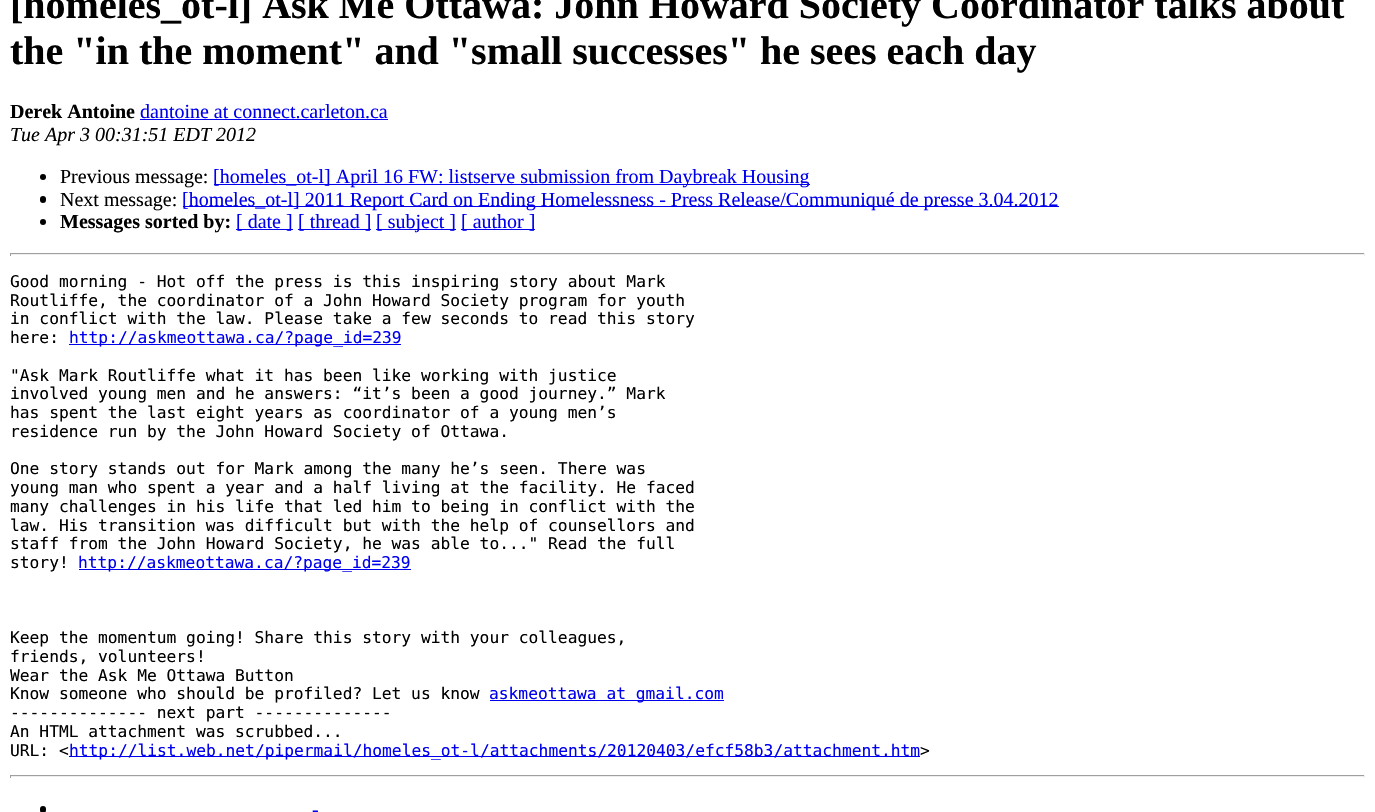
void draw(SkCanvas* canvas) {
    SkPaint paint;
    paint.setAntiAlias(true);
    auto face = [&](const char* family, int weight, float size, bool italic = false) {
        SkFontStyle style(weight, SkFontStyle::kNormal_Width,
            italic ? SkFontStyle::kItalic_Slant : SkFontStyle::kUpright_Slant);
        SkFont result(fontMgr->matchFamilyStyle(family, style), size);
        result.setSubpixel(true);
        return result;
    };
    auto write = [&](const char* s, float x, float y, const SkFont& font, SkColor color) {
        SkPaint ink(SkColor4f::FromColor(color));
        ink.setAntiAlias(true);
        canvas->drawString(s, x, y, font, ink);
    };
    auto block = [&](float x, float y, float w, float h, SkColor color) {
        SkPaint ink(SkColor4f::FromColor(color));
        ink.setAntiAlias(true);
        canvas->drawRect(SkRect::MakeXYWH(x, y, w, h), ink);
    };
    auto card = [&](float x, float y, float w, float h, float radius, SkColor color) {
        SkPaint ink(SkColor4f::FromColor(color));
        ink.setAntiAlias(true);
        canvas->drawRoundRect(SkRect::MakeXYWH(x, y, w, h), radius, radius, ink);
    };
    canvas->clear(SK_ColorWHITE);
    auto kFont1 = face("Liberation Serif", 700, 40);
    write("[homeles_ot-l] Ask Me Ottawa: John Howard Society Coordinator talks about", 10, 18, kFont1, SK_ColorBLACK);
    write("the \"in the moment\" and \"small successes\" he sees each day", 10, 64, kFont1, SK_ColorBLACK);
    auto kFont2 = face("Liberation Serif", 700, 20);
    write("Derek Antoine", 10, 118, kFont2, SK_ColorBLACK);
    auto kFont3 = face("Liberation Serif", 400, 20);
    write("dantoine at connect.carleton.ca", 140, 118, kFont3, SkColorSetRGB(0, 0, 238));
    block(140, 119, 248, 1, SkColorSetRGB(0, 0, 238));
    auto kFont4 = face("Liberation Serif", 400, 20, true);
    write("Tue Apr 3 00:31:51 EDT 2012", 10, 141, kFont4, SK_ColorBLACK);
    paint.setColor(SK_ColorBLACK);
    canvas->drawCircle(43, 177, 3, paint);
    write("Previous message:", 60, 183, kFont3, SK_ColorBLACK);
    block(214, 184, 596, 1, SkColorSetRGB(0, 0, 238));
    write("[homeles_ot-l] April 16 FW: listserve submission from Daybreak Housing", 213, 183, kFont3, SkColorSetRGB(0, 0, 238));
    card(40, 196, 6, 7, 3, SK_ColorBLACK);
    write("Next message:", 60, 206, kFont3, SK_ColorBLACK);
    block(183, 206, 876, 1, SkColorSetRGB(0, 0, 238));
    write("[homeles_ot-l] 2011 Report Card on Ending Homelessness - Press Release/Communiqué de presse 3.04.2012", 182, 206, kFont3, SkColorSetRGB(0, 0, 238));
    canvas->drawCircle(43, 222, 3, paint);
    write("Messages sorted by:", 60, 228, kFont2, SK_ColorBLACK);
    block(236, 229, 57, 1, SkColorSetRGB(0, 0, 238));
    write("[ date ]", 236, 228, kFont3, SkColorSetRGB(0, 0, 238));
    block(298, 229, 73, 1, SkColorSetRGB(0, 0, 238));
    write("[ thread ]", 298, 228, kFont3, SkColorSetRGB(0, 0, 238));
    block(376, 229, 80, 1, SkColorSetRGB(0, 0, 238));
    write("[ subject ]", 376, 228, kFont3, SkColorSetRGB(0, 0, 238));
    block(461, 229, 74, 1, SkColorSetRGB(0, 0, 238));
    write("[ author ]", 461, 228, kFont3, SkColorSetRGB(0, 0, 238));
    block(10, 253, 1355, 1, SkColorSetRGB(159, 159, 159));
    block(1364, 253, 1, 3, SkColorSetRGB(238, 238, 238));
    block(10, 254, 1355, 1, SkColorSetRGB(238, 238, 238));
    block(10, 253, 1, 3, SkColorSetRGB(159, 159, 159));
    auto kFont5 = face("DejaVu Sans Mono", 400, 16.25f);
    write("Good morning - Hot off the press is this inspiring story about Mark", 10, 287, kFont5, SK_ColorBLACK);
    write("Routliffe, the coordinator of a John Howard Society program for youth", 10, 306, kFont5, SK_ColorBLACK);
    write("in conflict with the law. Please take a few seconds to read this story", 10, 324, kFont5, SK_ColorBLACK);
    write("here:", 10, 343, kFont5, SK_ColorBLACK);
    block(69, 344, 332, 1, SkColorSetRGB(0, 0, 238));
    write("http://askmeottawa.ca/?page_id=239", 69, 343, kFont5, SkColorSetRGB(0, 0, 238));
    write("\"Ask Mark Routliffe what it has been like working with justice", 10, 381, kFont5, SK_ColorBLACK);
    write("involved young men and he answers: “it’s been a good journey.” Mark", 10, 399, kFont5, SK_ColorBLACK);
    write("has spent the last eight years as coordinator of a young men’s", 10, 418, kFont5, SK_ColorBLACK);
    write("residence run by the John Howard Society of Ottawa.", 10, 437, kFont5, SK_ColorBLACK);
    write("One story stands out for Mark among the many he’s seen. There was", 10, 474, kFont5, SK_ColorBLACK);
    write("young man who spent a year and a half living at the facility. He faced", 10, 493, kFont5, SK_ColorBLACK);
    write("many challenges in his life that led him to being in conflict with the", 10, 512, kFont5, SK_ColorBLACK);
    write("law. His transition was difficult but with the help of counsellors and", 10, 531, kFont5, SK_ColorBLACK);
    write("staff from the John Howard Society, he was able to...\" Read the full", 10, 549, kFont5, SK_ColorBLACK);
    write("story!", 10, 568, kFont5, SK_ColorBLACK);
    block(79, 569, 332, 1, SkColorSetRGB(0, 0, 238));
    write("http://askmeottawa.ca/?page_id=239", 78, 568, kFont5, SkColorSetRGB(0, 0, 238));
    write("Keep the momentum going! Share this story with your colleagues,", 10, 643, kFont5, SK_ColorBLACK);
    write("friends, volunteers!", 10, 662, kFont5, SK_ColorBLACK);
    write("Wear the Ask Me Ottawa Button", 10, 681, kFont5, SK_ColorBLACK);
    write("Know someone who should be profiled? Let us know", 10, 699, kFont5, SK_ColorBLACK);
    block(490, 700, 234, 1, SkColorSetRGB(0, 0, 238));
    write("askmeottawa at gmail.com", 489, 699, kFont5, SkColorSetRGB(0, 0, 238));
    write("-------------- next part --------------", 10, 718, kFont5, SK_ColorBLACK);
    write("An HTML attachment was scrubbed...", 10, 737, kFont5, SK_ColorBLACK);
    write("URL: <", 10, 756, kFont5, SK_ColorBLACK);
    block(69, 756, 851, 1, SkColorSetRGB(0, 0, 238));
    write("http://list.web.net/pipermail/homeles_ot-l/attachments/20120403/efcf58b3/attachment.htm", 69, 756, kFont5, SkColorSetRGB(0, 0, 238));
    write(">", 920, 756, kFont5, SK_ColorBLACK);
    block(10, 775, 1355, 1, SkColorSetRGB(159, 159, 159));
    block(1364, 775, 1, 3, SkColorSetRGB(238, 238, 238));
    block(10, 776, 1355, 1, SkColorSetRGB(238, 238, 238));
    block(10, 775, 1, 3, SkColorSetRGB(159, 159, 159));
    card(40, 806, 6, 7, 3, SK_ColorBLACK);
    write("-", 312, 816, kFont3, SkColorSetRGB(0, 0, 238));
}
